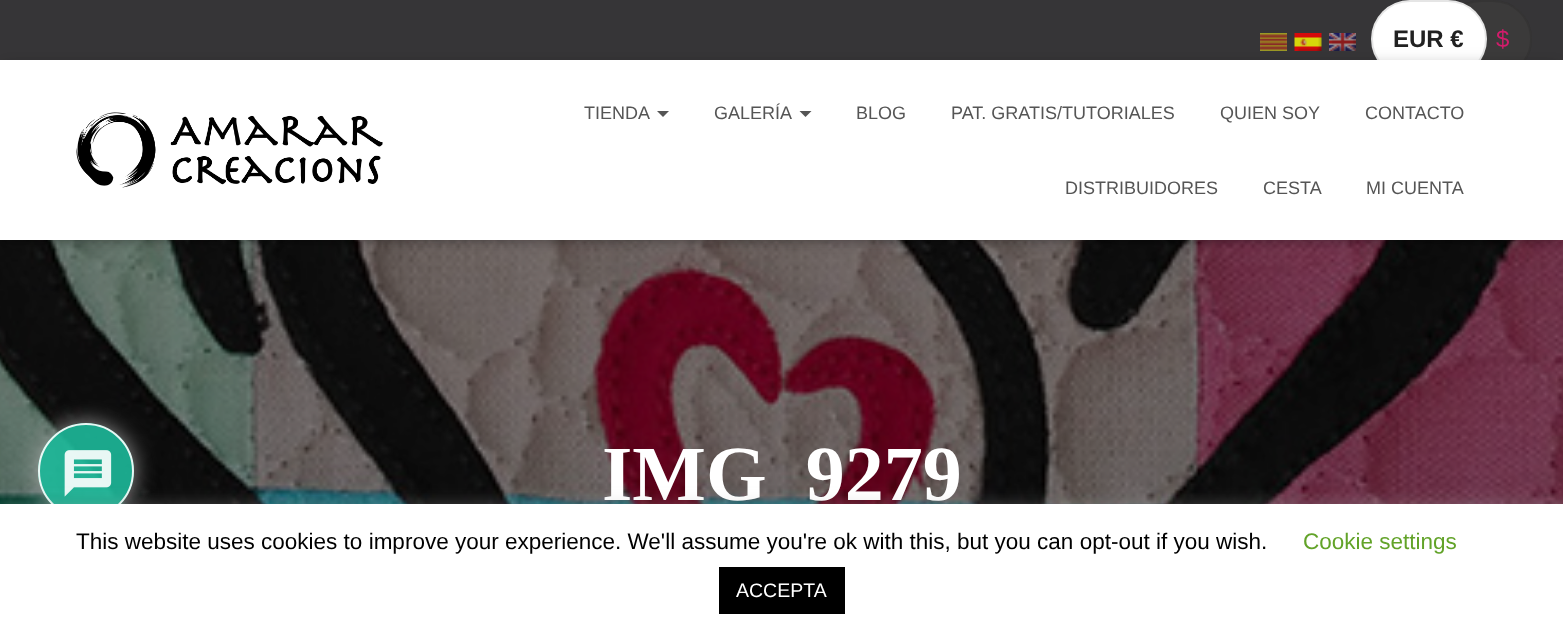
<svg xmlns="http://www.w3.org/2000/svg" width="1563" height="639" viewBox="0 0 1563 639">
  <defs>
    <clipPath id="clip1"><path d="M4 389H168V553H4ZM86 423C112.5 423 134 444.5 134 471C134 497.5 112.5 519 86 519C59.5 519 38 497.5 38 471C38 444.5 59.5 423 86 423Z" clip-rule="evenodd"/></clipPath>
    <filter id="blur1" x="-50%" y="-200%" width="200%" height="500%"><feGaussianBlur stdDeviation="11"/></filter>
    <filter id="blur2" x="-50%" y="-200%" width="200%" height="500%"><feGaussianBlur stdDeviation="4"/></filter>
    <filter id="blur3" x="-50%" y="-200%" width="200%" height="500%"><feGaussianBlur stdDeviation="7.5"/></filter>
  </defs>
  <rect width="100%" height="100%" fill="#363537"/>
  <image x="0" y="240" width="1563" height="264" href="img6.png"/>
  <g clip-path="url(#clip1)">
    <rect x="38" y="423" width="96" height="96" rx="48" fill="#aaaaaa" fill-opacity="0.9" filter="url(#blur1)"/>
  </g>
  <circle cx="86" cy="471" r="48" fill="#1db99a" fill-opacity="0.9"/>
  <circle cx="86" cy="471" r="47" fill="none" stroke="#ffffff" stroke-opacity="0.9" stroke-width="2"/>
  <image x="64" y="450" width="48" height="47" href="img1.png"/>
  <image x="1260" y="33" width="27" height="18" href="img2.png"/>
  <image x="1294" y="33" width="28" height="18" href="img3.png"/>
  <image x="1329" y="33" width="27" height="18" href="img4.png"/>
  <rect x="1442" y="0" width="90" height="78" rx="39" fill="#3b3a3a"/>
  <rect x="1443" y="1" width="88" height="76" rx="38" fill="none" stroke="#000000" stroke-opacity="0.1" stroke-width="2"/>
  <rect x="1371" y="0" width="116" height="78" rx="39" fill="#ffffff"/>
  <rect x="1372" y="1" width="114" height="76" rx="38" fill="none" stroke="#000000" stroke-opacity="0.1" stroke-width="2"/>
  <text x="1393" y="47" font-family="Liberation Sans" font-size="24" font-weight="bold" fill="#212121">EUR €</text>
  <text x="1496" y="47" font-family="Liberation Sans" font-size="24" fill="#d21c6b">$</text>
  <rect x="3" y="69" width="1557" height="174" fill="#000000" fill-opacity="0.1" filter="url(#blur2)"/>
  <rect x="0" y="62" width="1563" height="180" fill="#000000" fill-opacity="0.12" filter="url(#blur3)"/>
  <rect x="9" y="71" width="1545" height="162" fill="#000000" fill-opacity="0.42" filter="url(#blur3)"/>
  <rect x="0" y="60" width="1563" height="180" fill="#ffffff"/>
  <image x="76" y="112" width="307" height="76" href="img5.png"/>
  <text x="584" y="119" font-family="Liberation Sans" font-size="18" fill="#555555">TIENDA</text>
  <path d="M657 111H669L663 117Z" fill="#555555"/>
  <text x="714" y="119" font-family="Liberation Sans" font-size="18" fill="#555555">GALERÍA</text>
  <path d="M799.5 111H811.5L805.5 117Z" fill="#555555"/>
  <text x="856" y="119" font-family="Liberation Sans" font-size="18" fill="#555555">BLOG</text>
  <text x="951" y="119" font-family="Liberation Sans" font-size="18" fill="#555555">PAT. GRATIS/TUTORIALES</text>
  <text x="1220" y="119" font-family="Liberation Sans" font-size="18" fill="#555555">QUIEN SOY</text>
  <text x="1365" y="119" font-family="Liberation Sans" font-size="18" fill="#555555">CONTACTO</text>
  <text x="1065" y="194" font-family="Liberation Sans" font-size="18" fill="#555555">DISTRIBUIDORES</text>
  <text x="1263" y="194" font-family="Liberation Sans" font-size="18" fill="#555555">CESTA</text>
  <text x="1366" y="194" font-family="Liberation Sans" font-size="18" fill="#555555">MI CUENTA</text>
  <text x="602" y="500" font-family="Liberation Serif" font-size="78" font-weight="bold" fill="#ffffff">IMG_9279</text>
  <rect x="0" y="503" width="1563" height="135" fill="#acabab" fill-opacity="0.3" filter="url(#blur3)"/>
  <rect x="0" y="504" width="1563" height="135" fill="#ffffff"/>
  <text x="76" y="549" font-family="Liberation Sans" font-size="22.5" fill="#000000">This website uses cookies to improve your experience. We'll assume you're ok with this, but you can opt-out if you wish.</text>
  <text x="1303" y="549" font-family="Liberation Sans" font-size="22.5" fill="#62a329">Cookie settings</text>
  <rect x="719" y="567" width="126" height="47" fill="#000000"/>
  <text x="736" y="597" font-family="Liberation Sans" font-size="19.5" fill="#ffffff">ACCEPTA</text>
</svg>
